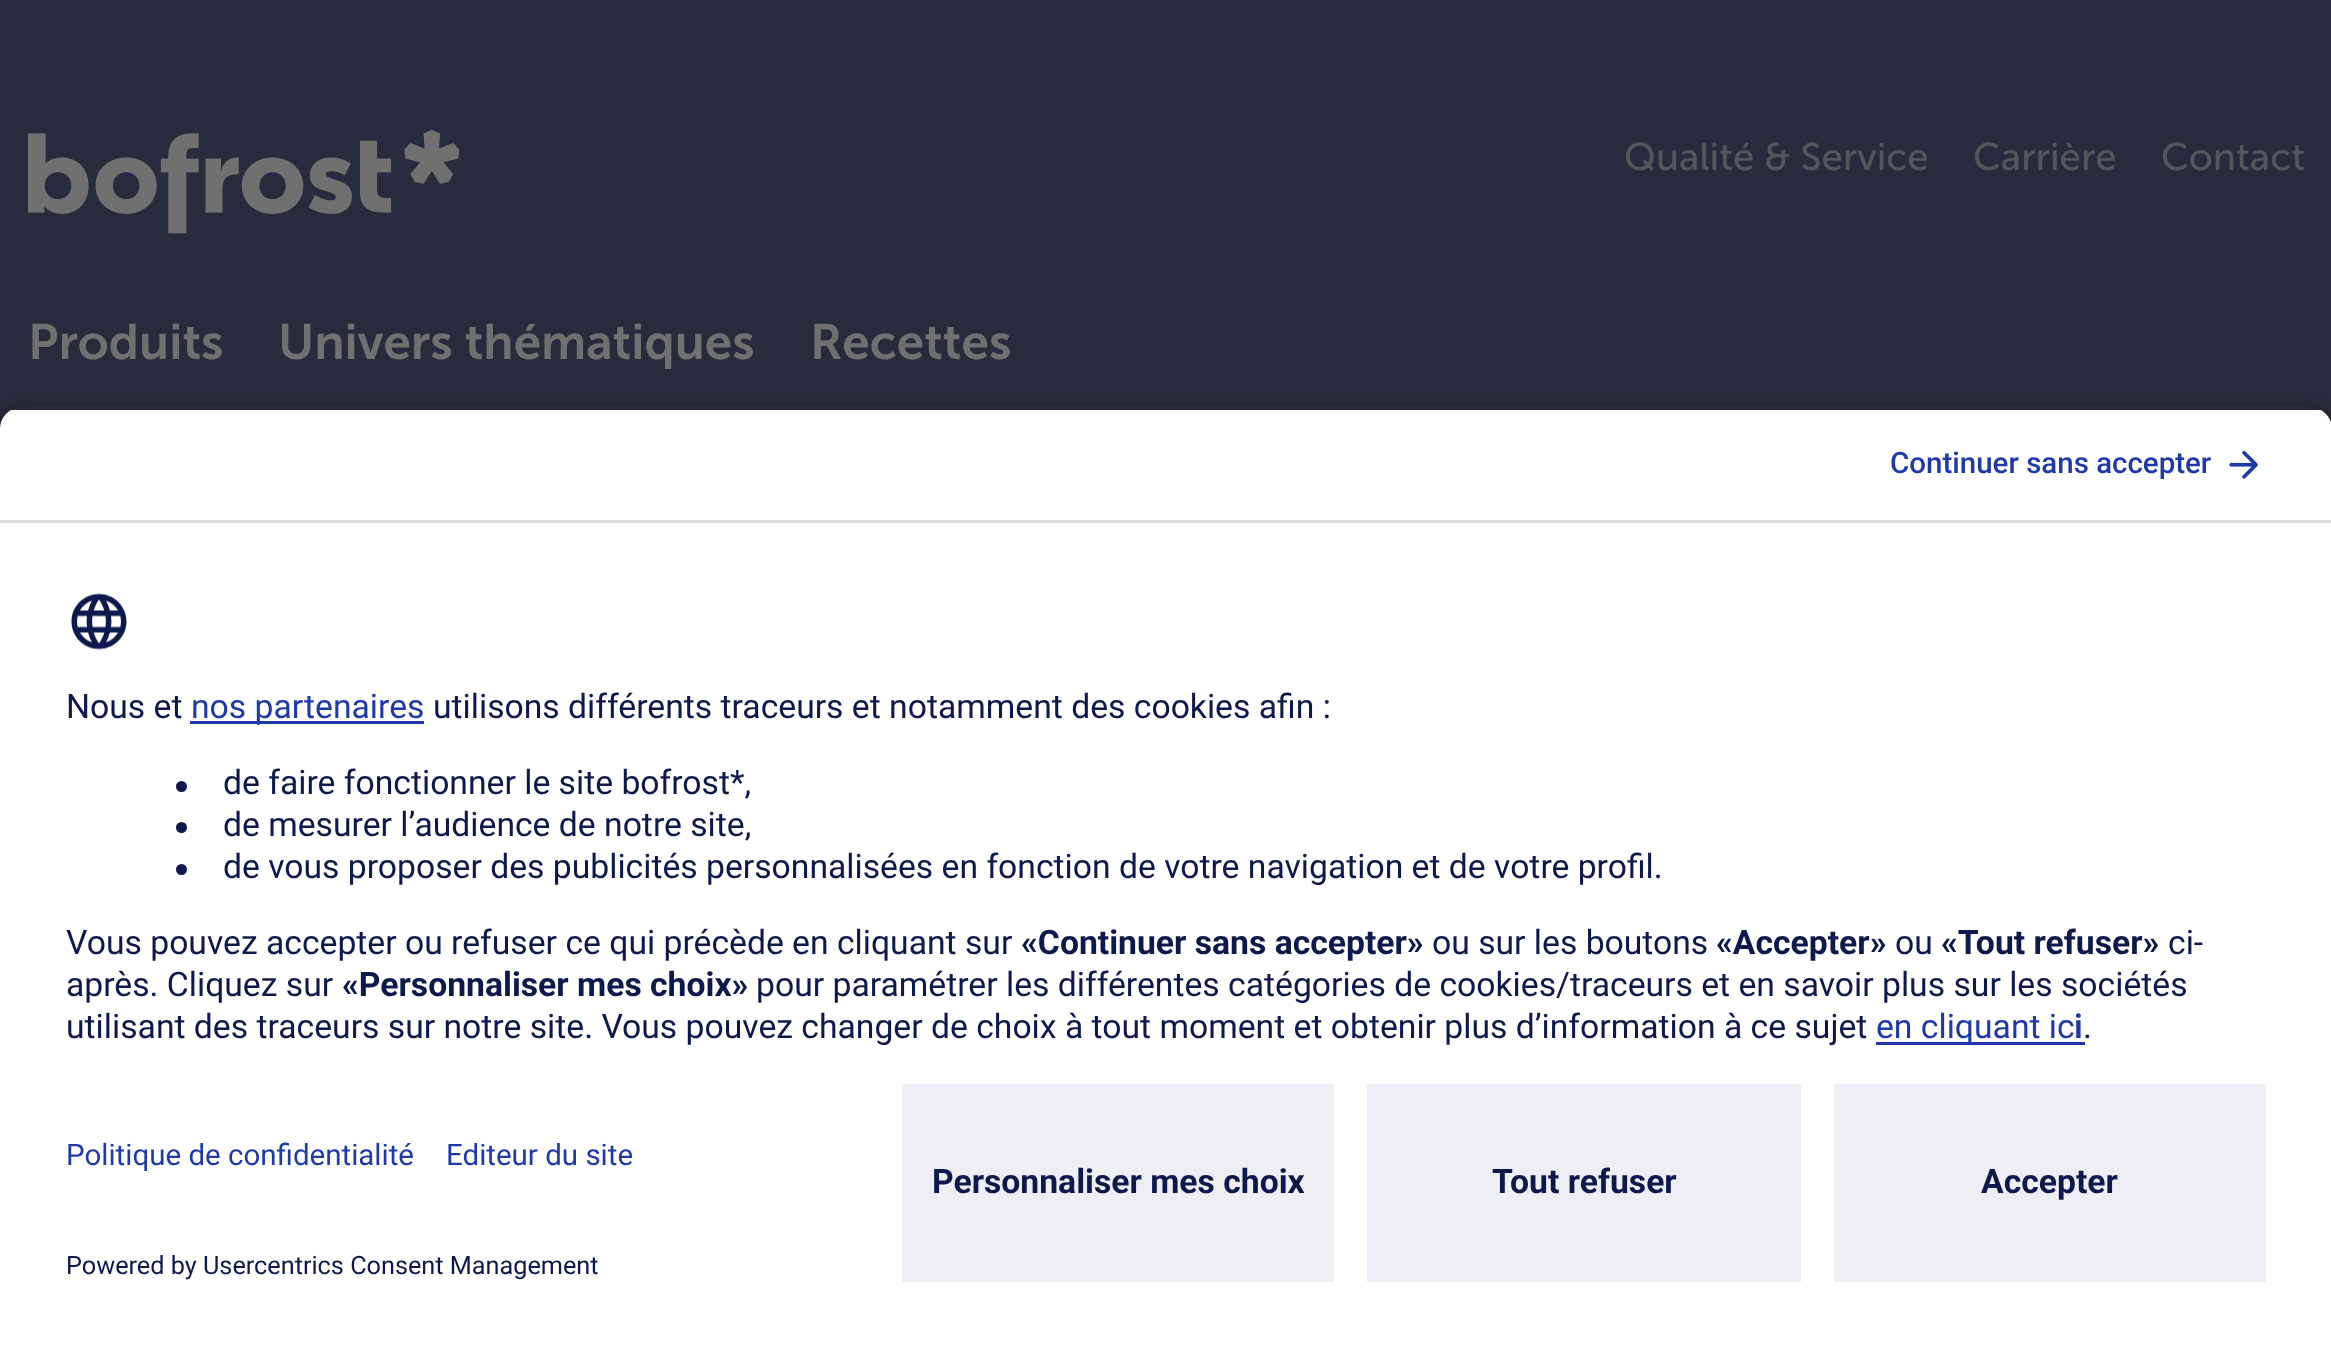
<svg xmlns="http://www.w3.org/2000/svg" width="2331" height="1347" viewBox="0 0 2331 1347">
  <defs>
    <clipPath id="clip1"><path d="M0 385H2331V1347H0ZM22 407H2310C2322 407 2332 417 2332 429V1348H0V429C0 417 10 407 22 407Z" clip-rule="evenodd"/></clipPath>
    <filter id="blur1" x="-50%" y="-200%" width="200%" height="500%"><feGaussianBlur stdDeviation="9.5"/></filter>
    <clipPath id="clip2"><path d="M22 407H2310C2322 407 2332 417 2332 429V1062H0V429C0 417 10 407 22 407Z"/></clipPath>
  </defs>
  <rect width="100%" height="100%" fill="#282b3b"/>
  <image x="28" y="129" width="431" height="105" href="img1.png"/>
  <text x="1624" y="170" font-family="Museo Sans" font-size="38.5" fill="#54565c">Qualité &amp; Service</text>
  <text x="1973" y="170" font-family="Museo Sans" font-size="38.5" fill="#54565c">Carrière</text>
  <text x="2161" y="170" font-family="Museo Sans" font-size="38.5" fill="#54565c">Contact</text>
  <text x="28" y="359" font-family="Museo Sans" font-size="49.5" font-weight="600" fill="#707070">Produits</text>
  <text x="278" y="359" font-family="Museo Sans" font-size="49.5" font-weight="600" fill="#707070">Univers thématiques</text>
  <text x="810" y="359" font-family="Museo Sans" font-size="49.5" font-weight="600" fill="#707070">Recettes</text>
  <g clip-path="url(#clip1)">
    <rect x="0" y="415" width="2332" height="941" rx="22" fill="#000000" fill-opacity="0.8" filter="url(#blur1)"/>
  </g>
  <g clip-path="url(#clip2)">
    <rect x="0" y="410" width="2331" height="110" fill="#ffffff"/>
  </g>
  <rect x="0" y="520" width="2331" height="3" fill="#dedede"/>
  <text x="1890" y="473" font-family="Roboto" font-size="29.5" font-weight="500" fill="#1f39ab">Continuer sans accepter</text>
  <image x="2229" y="450" width="29" height="29" href="img2.png"/>
  <rect x="0" y="523" width="2331" height="824" fill="#ffffff"/>
  <image x="71" y="593" width="56" height="57" href="img3.png"/>
  <text x="66" y="718" font-family="Roboto" font-size="33.7" fill="#0d194d">Nous et</text>
  <rect x="190" y="721" width="234" height="3" fill="#1f39ab"/>
  <text x="191" y="718" font-family="Roboto" font-size="33.7" fill="#1f39ab">nos partenaires</text>
  <text x="433" y="718" font-family="Roboto" font-size="33.7" fill="#0d194d">utilisons différents traceurs et notamment des cookies afin :</text>
  <circle cx="181.5" cy="786.5" r="5.5" fill="#0d194d"/>
  <text x="223" y="794" font-family="Roboto" font-size="33.7" fill="#0d194d">de faire fonctionner le site bofrost*,</text>
  <circle cx="181.5" cy="827.5" r="5.5" fill="#0d194d"/>
  <text x="223" y="836" font-family="Roboto" font-size="33.7" fill="#0d194d">de mesurer l’audience de notre site,</text>
  <circle cx="181.5" cy="869.5" r="5.5" fill="#0d194d"/>
  <text x="223" y="878" font-family="Roboto" font-size="33.7" fill="#0d194d">de vous proposer des publicités personnalisées en fonction de votre navigation et de votre profil.</text>
  <text x="66" y="954" font-family="Roboto" font-size="33.7" fill="#0d194d">Vous pouvez accepter ou refuser ce qui précède en cliquant sur</text>
  <text x="1021" y="954" font-family="Roboto" font-size="33.7" font-weight="bold" fill="#0d194d">«Continuer sans accepter»</text>
  <text x="1432" y="954" font-family="Roboto" font-size="33.7" fill="#0d194d">ou sur les boutons</text>
  <text x="1716" y="954" font-family="Roboto" font-size="33.7" font-weight="bold" fill="#0d194d">«Accepter»</text>
  <text x="1895" y="954" font-family="Roboto" font-size="33.7" fill="#0d194d">ou</text>
  <text x="1941" y="954" font-family="Roboto" font-size="33.7" font-weight="bold" fill="#0d194d">«Tout refuser»</text>
  <text x="2168" y="954" font-family="Roboto" font-size="33.7" fill="#0d194d">ci-</text>
  <text x="66" y="996" font-family="Roboto" font-size="33.7" fill="#0d194d">après. Cliquez sur</text>
  <text x="342" y="996" font-family="Roboto" font-size="33.7" font-weight="bold" fill="#0d194d">«Personnaliser mes choix»</text>
  <text x="756" y="996" font-family="Roboto" font-size="33.7" fill="#0d194d">pour paramétrer les différentes catégories de cookies/traceurs et en savoir plus sur les sociétés</text>
  <text x="66" y="1038" font-family="Roboto" font-size="33.7" fill="#0d194d">utilisant des traceurs sur notre site. Vous pouvez changer de choix à tout moment et obtenir plus d’information à ce sujet</text>
  <rect x="1876" y="1042" width="209" height="3" fill="#1f39ab"/>
  <text x="1876" y="1038" font-family="Roboto" font-size="33.7" fill="#1f39ab">en cliquant ic</text>
  <text x="2074" y="1038" font-family="Roboto" font-size="33.7" font-weight="600" fill="#1f39ab">i</text>
  <text x="2083" y="1038" font-family="Roboto" font-size="33.7" fill="#0d194d">.</text>
  <text x="66" y="1165" font-family="Roboto" font-size="29.5" fill="#1f39ab">Politique de confidentialité</text>
  <text x="446" y="1165" font-family="Roboto" font-size="29.5" fill="#1f39ab">Editeur du site</text>
  <text x="66" y="1274" font-family="Roboto" font-size="25.25" fill="#0d194d">Powered by Usercentrics Consent Management</text>
  <rect x="902" y="1084" width="432" height="198" fill="#eeeef5"/>
  <text x="932" y="1193" font-family="Roboto" font-size="33.7" font-weight="bold" fill="#0d194d">Personnaliser mes choix</text>
  <rect x="1367" y="1084" width="434" height="198" fill="#eeeef5"/>
  <text x="1492" y="1193" font-family="Roboto" font-size="33.7" font-weight="bold" fill="#0d194d">Tout refuser</text>
  <rect x="1834" y="1084" width="432" height="198" fill="#eeeef5"/>
  <text x="1981" y="1193" font-family="Roboto" font-size="33.7" font-weight="bold" fill="#0d194d">Accepter</text>
</svg>
